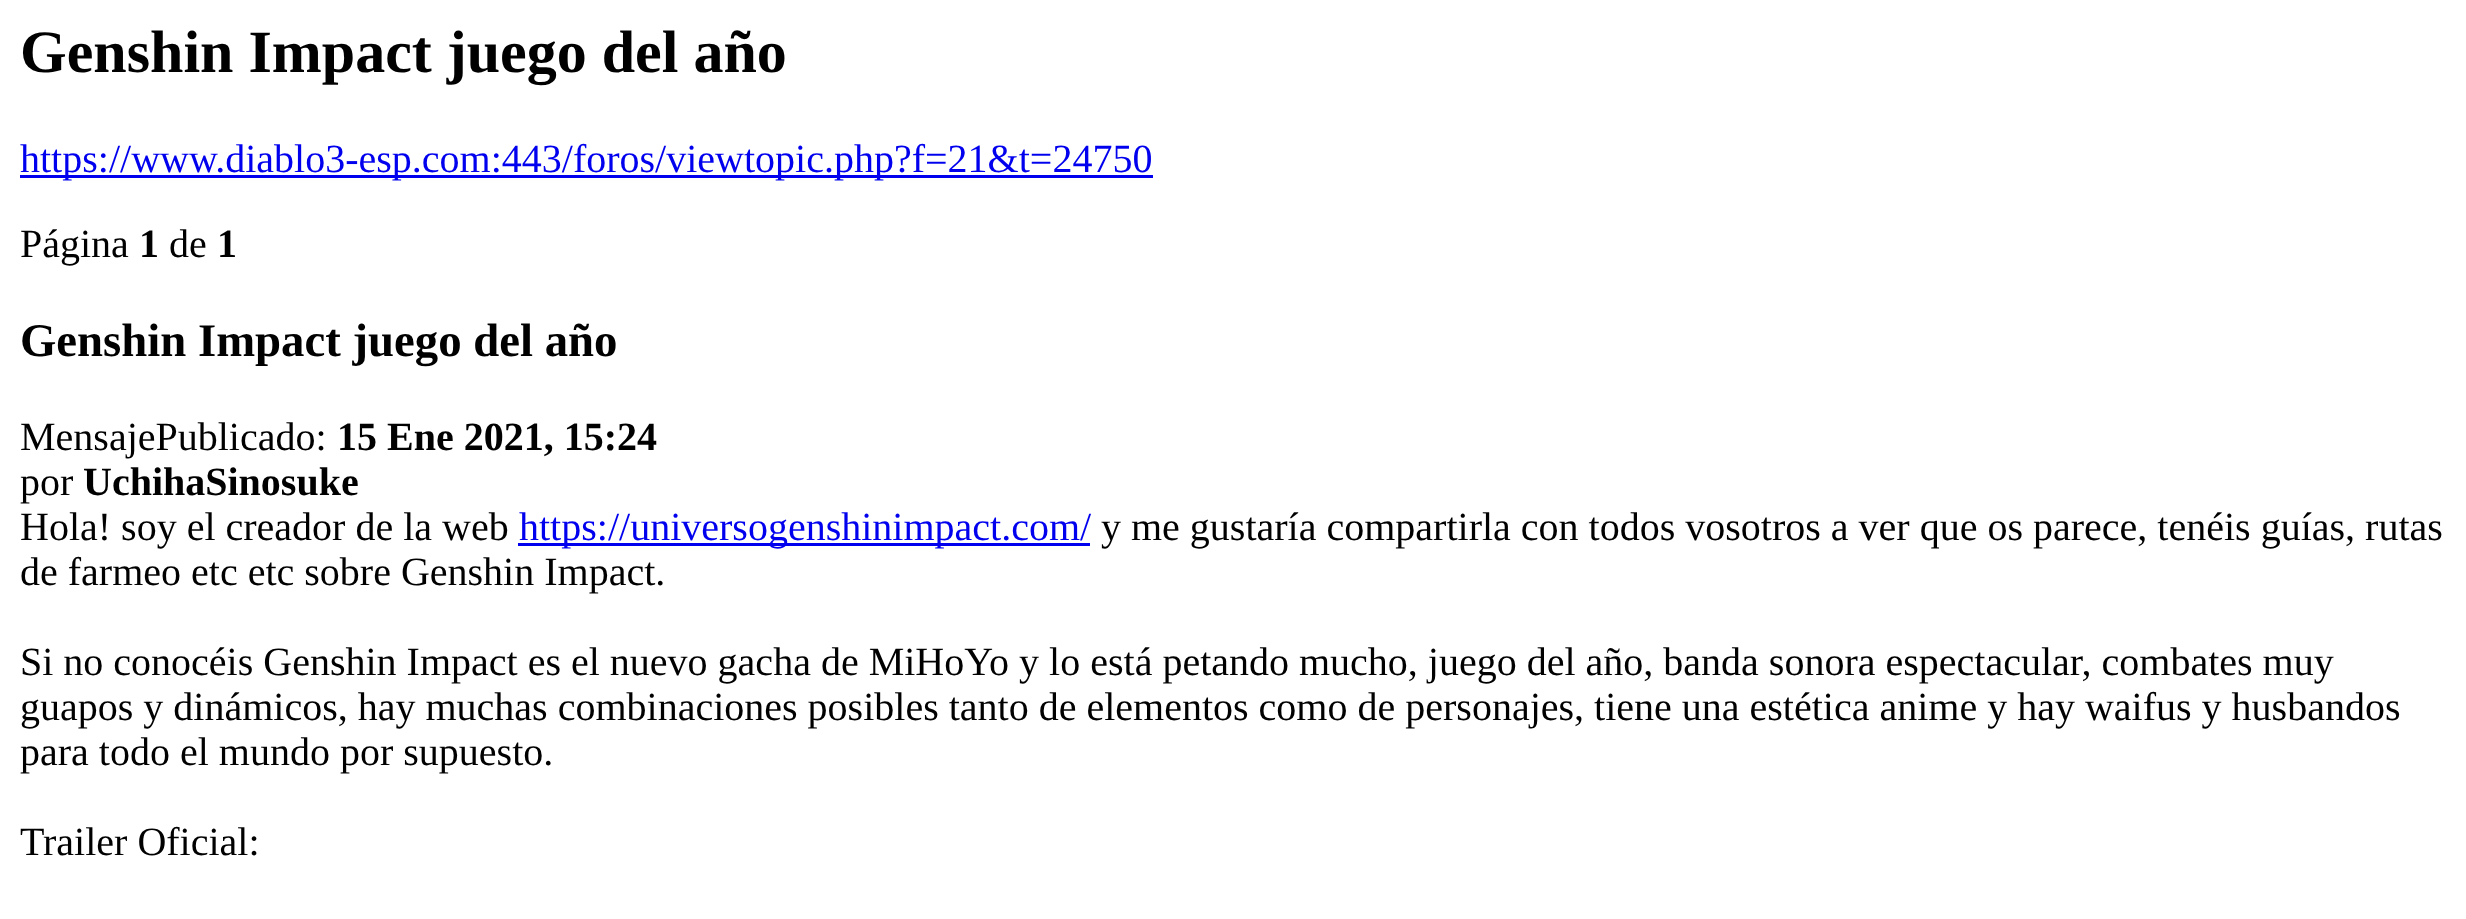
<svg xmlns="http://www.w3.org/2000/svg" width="2466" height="919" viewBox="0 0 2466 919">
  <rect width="100%" height="100%" fill="#ffffff"/>
  <text x="20" y="72" font-family="Liberation Serif" font-size="60" font-weight="bold" fill="#000000">Genshin Impact juego del año</text>
  <rect x="20" y="175" width="1133" height="3" fill="#0000ee"/>
  <text x="20" y="172" font-family="Liberation Serif" font-size="40" fill="#0000ee">https://www.diablo3-esp.com:443/foros/viewtopic.php?f=21&amp;t=24750</text>
  <text x="20" y="257" font-family="Liberation Serif" font-size="40" fill="#000000">Página</text>
  <text x="139" y="257" font-family="Liberation Serif" font-size="40" font-weight="bold" fill="#000000">1</text>
  <text x="169" y="257" font-family="Liberation Serif" font-size="40" fill="#000000">de</text>
  <text x="217" y="257" font-family="Liberation Serif" font-size="40" font-weight="bold" fill="#000000">1</text>
  <text x="20" y="356" font-family="Liberation Serif" font-size="46.75" font-weight="bold" fill="#000000">Genshin Impact juego del año</text>
  <text x="20" y="450" font-family="Liberation Serif" font-size="40" fill="#000000">MensajePublicado:</text>
  <text x="337" y="450" font-family="Liberation Serif" font-size="40" font-weight="bold" fill="#000000">15 Ene 2021, 15:24</text>
  <text x="20" y="495" font-family="Liberation Serif" font-size="40" fill="#000000">por</text>
  <text x="83" y="495" font-family="Liberation Serif" font-size="40" font-weight="bold" fill="#000000">UchihaSinosuke</text>
  <text x="20" y="540" font-family="Liberation Serif" font-size="40" fill="#000000">Hola! soy el creador de la web</text>
  <rect x="518" y="543" width="572" height="3" fill="#0000ee"/>
  <text x="519" y="540" font-family="Liberation Serif" font-size="40" fill="#0000ee">https://universogenshinimpact.com/</text>
  <text x="1101" y="540" font-family="Liberation Serif" font-size="40" fill="#000000">y me gustaría compartirla con todos vosotros a ver que os parece, tenéis guías, rutas</text>
  <text x="20" y="585" font-family="Liberation Serif" font-size="40" fill="#000000">de farmeo etc etc sobre Genshin Impact.</text>
  <text x="20" y="675" font-family="Liberation Serif" font-size="40" fill="#000000">Si no conocéis Genshin Impact es el nuevo gacha de MiHoYo y lo está petando mucho, juego del año, banda sonora espectacular, combates muy</text>
  <text x="20" y="720" font-family="Liberation Serif" font-size="40" fill="#000000">guapos y dinámicos, hay muchas combinaciones posibles tanto de elementos como de personajes, tiene una estética anime y hay waifus y husbandos</text>
  <text x="20" y="765" font-family="Liberation Serif" font-size="40" fill="#000000">para todo el mundo por supuesto.</text>
  <text x="20" y="855" font-family="Liberation Serif" font-size="40" fill="#000000">Trailer Oficial:</text>
</svg>
